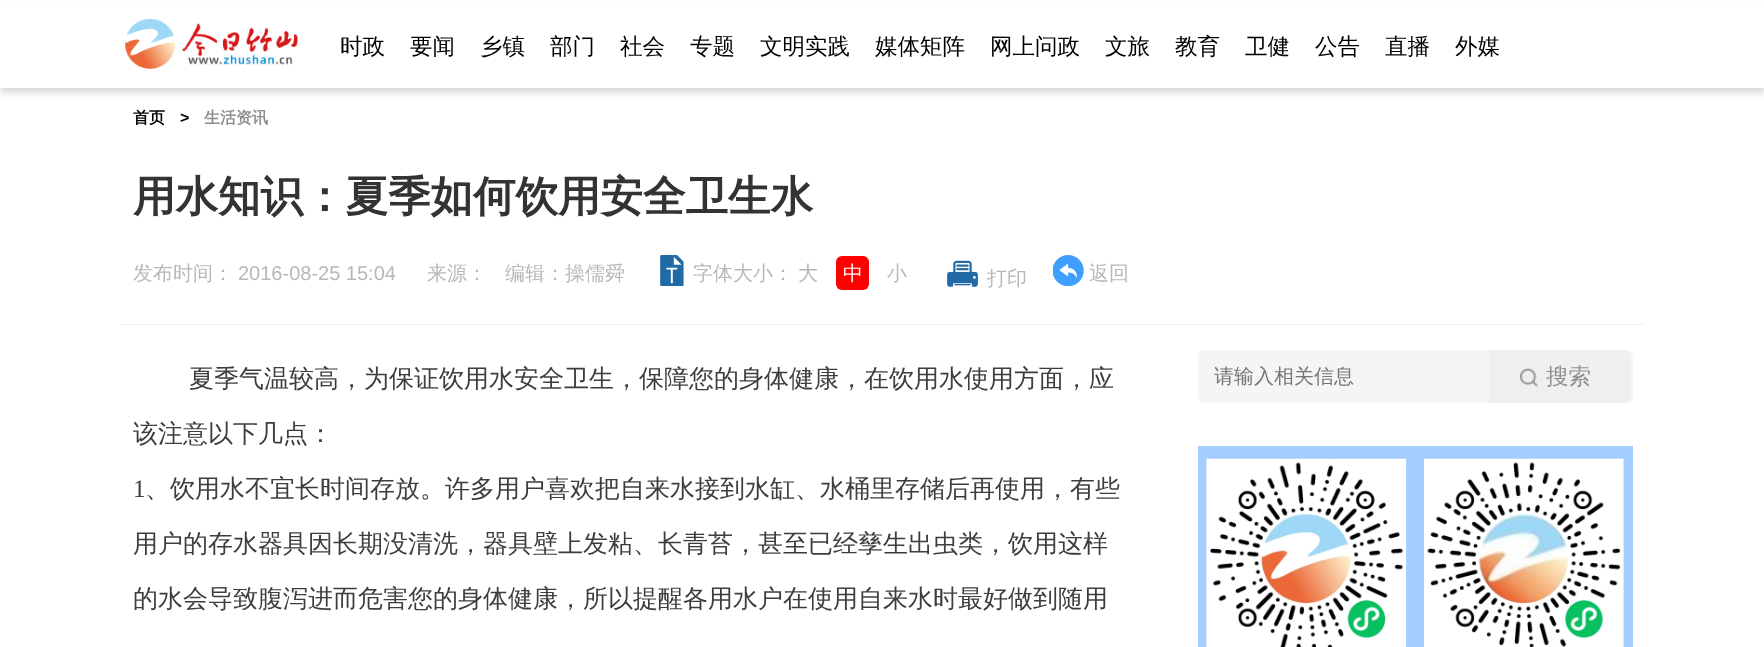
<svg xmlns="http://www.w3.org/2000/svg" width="1764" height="647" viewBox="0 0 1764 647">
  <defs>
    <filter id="blur1" x="-50%" y="-200%" width="200%" height="500%"><feGaussianBlur stdDeviation="3"/></filter>
  </defs>
  <rect width="100%" height="100%" fill="#ffffff"/>
  <rect x="0" y="5" width="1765" height="88" fill="#000000" fill-opacity="0.15" filter="url(#blur1)"/>
  <rect x="0" y="1" width="1764" height="87" fill="#ffffff"/>
  <image x="125" y="18" width="173" height="51" href="img1.png"/>
  <text x="340" y="54" font-family="WenQuanYi Zen Hei" font-size="22.5" font-weight="500" fill="#000000">时政</text>
  <text x="410" y="54" font-family="WenQuanYi Zen Hei" font-size="22.5" font-weight="500" fill="#000000">要闻</text>
  <text x="480" y="54" font-family="WenQuanYi Zen Hei" font-size="22.5" font-weight="500" fill="#000000">乡镇</text>
  <text x="550" y="54" font-family="WenQuanYi Zen Hei" font-size="22.5" font-weight="500" fill="#000000">部门</text>
  <text x="620" y="54" font-family="WenQuanYi Zen Hei" font-size="22.5" font-weight="500" fill="#000000">社会</text>
  <text x="690" y="54" font-family="WenQuanYi Zen Hei" font-size="22.5" font-weight="500" fill="#000000">专题</text>
  <text x="760" y="54" font-family="WenQuanYi Zen Hei" font-size="22.5" font-weight="500" fill="#000000">文明实践</text>
  <text x="875" y="54" font-family="WenQuanYi Zen Hei" font-size="22.5" font-weight="500" fill="#000000">媒体矩阵</text>
  <text x="990" y="54" font-family="WenQuanYi Zen Hei" font-size="22.5" font-weight="500" fill="#000000">网上问政</text>
  <text x="1105" y="54" font-family="WenQuanYi Zen Hei" font-size="22.5" font-weight="500" fill="#000000">文旅</text>
  <text x="1175" y="54" font-family="WenQuanYi Zen Hei" font-size="22.5" font-weight="500" fill="#000000">教育</text>
  <text x="1245" y="54" font-family="WenQuanYi Zen Hei" font-size="22.5" font-weight="500" fill="#000000">卫健</text>
  <text x="1315" y="54" font-family="WenQuanYi Zen Hei" font-size="22.5" font-weight="500" fill="#000000">公告</text>
  <text x="1385" y="54" font-family="WenQuanYi Zen Hei" font-size="22.5" font-weight="500" fill="#000000">直播</text>
  <text x="1455" y="54" font-family="WenQuanYi Zen Hei" font-size="22.5" font-weight="500" fill="#000000">外媒</text>
  <text x="133" y="123" font-family="WenQuanYi Zen Hei" font-size="16" font-weight="bold" fill="#000000">首页</text>
  <text x="180" y="123" font-family="Liberation Sans" font-size="16" font-weight="bold" fill="#000000">&gt;</text>
  <text x="204" y="123" font-family="WenQuanYi Zen Hei" font-size="16" font-weight="bold" fill="#8e8e8e">生活资讯</text>
  <rect x="120" y="324" width="1525" height="1" fill="#f1f1f1"/>
  <text x="133" y="211" font-family="WenQuanYi Zen Hei" font-size="42.5" font-weight="bold" fill="#333333">用水知识：夏季如何饮用安全卫生水</text>
  <text x="133" y="280" font-family="WenQuanYi Zen Hei" font-size="20" font-weight="500" fill="#b8b8b8">发布时间：</text>
  <text x="238" y="280" font-family="Liberation Sans" font-size="20" fill="#b8b8b8">2016-08-25 15:04</text>
  <text x="427" y="280" font-family="WenQuanYi Zen Hei" font-size="20" font-weight="500" fill="#b8b8b8">来源：</text>
  <text x="505" y="280" font-family="WenQuanYi Zen Hei" font-size="20" font-weight="500" fill="#b8b8b8">编辑：操儒舜</text>
  <image x="660" y="255" width="24" height="31" href="img2.png"/>
  <text x="693" y="280" font-family="WenQuanYi Zen Hei" font-size="20" font-weight="500" fill="#b8b8b8">字体大小：</text>
  <text x="798" y="280" font-family="WenQuanYi Zen Hei" font-size="20" font-weight="500" fill="#b8b8b8">大</text>
  <rect x="836" y="256" width="33" height="34" rx="6" fill="#ff0000"/>
  <text x="843" y="280" font-family="WenQuanYi Zen Hei" font-size="20" font-weight="500" fill="#ffffff">中</text>
  <text x="887" y="280" font-family="WenQuanYi Zen Hei" font-size="20" font-weight="500" fill="#b8b8b8">小</text>
  <image x="947" y="260" width="31" height="27" href="img3.png"/>
  <text x="987" y="285" font-family="WenQuanYi Zen Hei" font-size="20" font-weight="500" fill="#b8b8b8">打印</text>
  <image x="1053" y="255" width="31" height="31" href="img4.png"/>
  <text x="1089" y="280" font-family="WenQuanYi Zen Hei" font-size="20" font-weight="500" fill="#b8b8b8">返回</text>
  <text x="189" y="387" font-family="WenQuanYi Zen Hei" font-size="25" font-weight="500" fill="#3d3d3d">夏季气温较高，为保证饮用水安全卫生，保障您的身体健康，在饮用水使用方面，应</text>
  <text x="133" y="442" font-family="WenQuanYi Zen Hei" font-size="25" font-weight="500" fill="#3d3d3d">该注意以下几点：</text>
  <text x="133" y="497" font-family="Liberation Serif" font-size="25" fill="#3d3d3d">1</text>
  <text x="145" y="497" font-family="WenQuanYi Zen Hei" font-size="25" font-weight="500" fill="#3d3d3d">、饮用水不宜长时间存放。许多用户喜欢把自来水接到水缸、水桶里存储后再使用，有些</text>
  <text x="133" y="552" font-family="WenQuanYi Zen Hei" font-size="25" font-weight="500" fill="#3d3d3d">用户的存水器具因长期没清洗，器具壁上发粘、长青苔，甚至已经孳生出虫类，饮用这样</text>
  <text x="133" y="607" font-family="WenQuanYi Zen Hei" font-size="25" font-weight="500" fill="#3d3d3d">的水会导致腹泻进而危害您的身体健康，所以提醒各用水户在使用自来水时最好做到随用</text>
  <rect x="1198" y="350" width="435" height="53" rx="6" fill="#f5f5f5"/>
  <text x="1214" y="383" font-family="WenQuanYi Zen Hei" font-size="20" font-weight="500" fill="#757575">请输入相关信息</text>
  <path d="M1489 350H1624C1627.5 350 1630 352.5 1630 356V397C1630 400.5 1627.5 403 1624 403H1489Z" fill="#efefef"/>
  <text x="1546" y="384" font-family="WenQuanYi Zen Hei" font-size="22.5" font-weight="500" fill="#8e8e8e">搜索</text>
  <image x="1520" y="368" width="18" height="19" href="img5.png"/>
  <rect x="1198" y="446" width="435" height="201" fill="#a4ceff"/>
  <image x="1206" y="458" width="201" height="189" href="img6.png"/>
  <image x="1423" y="458" width="201" height="189" href="img7.png"/>
</svg>
